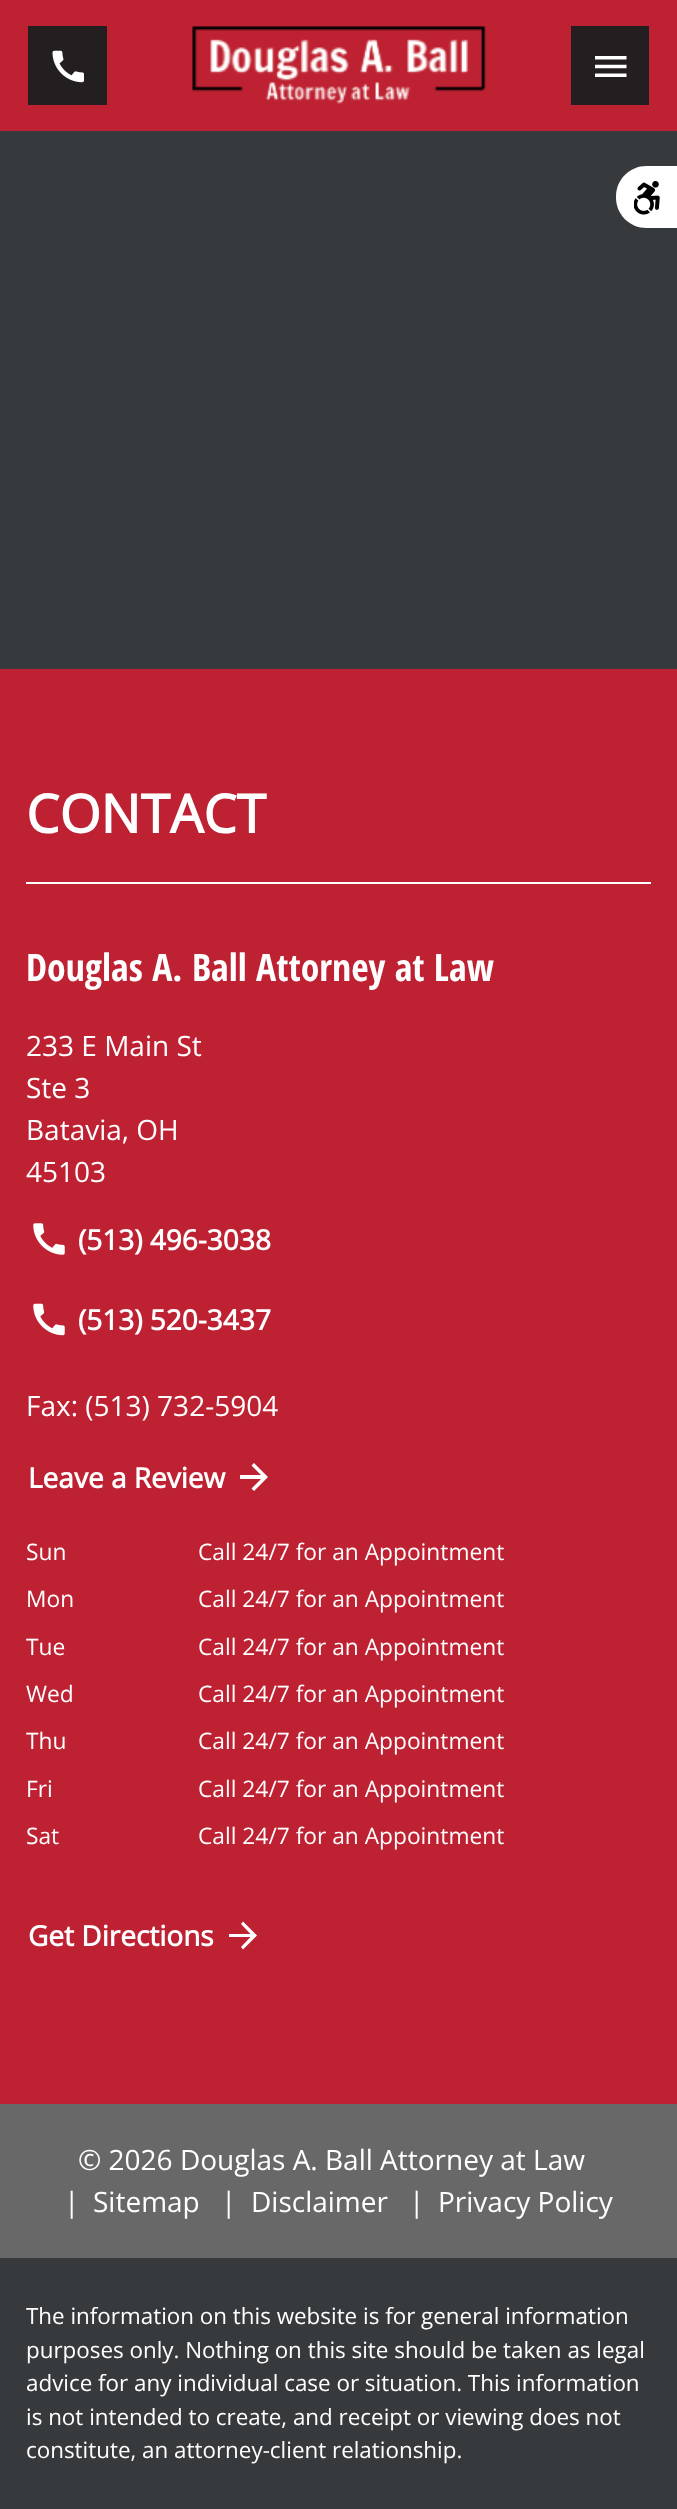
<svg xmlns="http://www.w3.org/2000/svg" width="677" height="2509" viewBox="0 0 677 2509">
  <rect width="100%" height="100%" fill="#373a3c"/>
  <rect x="0" y="0" width="677" height="131" fill="#be2132"/>
  <rect x="28" y="26" width="79" height="79" fill="#231f20"/>
  <image x="52" y="50" width="32" height="33" href="img1.png"/>
  <image x="192" y="26" width="295" height="79" href="img2.png"/>
  <rect x="571" y="26" width="78" height="79" fill="#231f20"/>
  <image x="595" y="56" width="32" height="21" href="img3.png"/>
  <path d="M646.5 166H677V228H646.5C629.5 228 616 214.5 616 197.5V196.5C616 179.5 629.5 166 646.5 166Z" fill="#ffffff"/>
  <image x="634" y="181" width="26" height="34" href="img4.png"/>
  <rect x="0" y="669" width="677" height="1435" fill="#be2132"/>
  <rect x="26" y="882" width="625" height="2" fill="#ffffff"/>
  <text x="26" y="833" font-family="Open Sans" font-size="53" font-weight="bold" fill="#ffffff">CONTACT</text>
  <text x="26" y="981" font-family="Open Sans Condensed" font-size="37.75" font-weight="bold" fill="#ffffff">Douglas A. Ball Attorney at Law</text>
  <text x="26" y="1056" font-family="Open Sans" font-size="28" fill="#ffffff">233 E Main St</text>
  <text x="26" y="1098" font-family="Open Sans" font-size="28" fill="#ffffff">Ste 3</text>
  <text x="26" y="1140" font-family="Open Sans" font-size="28" fill="#ffffff">Batavia, OH</text>
  <text x="26" y="1182" font-family="Open Sans" font-size="28" fill="#ffffff">45103</text>
  <image x="33" y="1223" width="32" height="32" href="img5.png"/>
  <text x="78" y="1250" font-family="Open Sans" font-size="28" font-weight="bold" fill="#ffffff">(513) 496-3038</text>
  <image x="33" y="1303" width="32" height="33" href="img6.png"/>
  <text x="78" y="1330" font-family="Open Sans" font-size="28" font-weight="bold" fill="#ffffff">(513) 520-3437</text>
  <text x="26" y="1416" font-family="Open Sans" font-size="28" fill="#ffffff">Fax: (513) 732-5904</text>
  <text x="28" y="1488" font-family="Open Sans" font-size="28" font-weight="bold" fill="#ffffff">Leave a Review</text>
  <path d="M254 1463L251.5 1465.5L261 1475H240V1479H261L251.5 1488.5L254 1491L268 1477Z" fill="#ffffff"/>
  <text x="26" y="1560" font-family="Open Sans" font-size="22.75" fill="#ffffff">Sun</text>
  <text x="198" y="1560" font-family="Open Sans" font-size="22.75" fill="#ffffff">Call 24/7 for an Appointment</text>
  <text x="26" y="1607" font-family="Open Sans" font-size="22.75" fill="#ffffff">Mon</text>
  <text x="198" y="1607" font-family="Open Sans" font-size="22.75" fill="#ffffff">Call 24/7 for an Appointment</text>
  <text x="26" y="1655" font-family="Open Sans" font-size="22.75" fill="#ffffff">Tue</text>
  <text x="198" y="1655" font-family="Open Sans" font-size="22.75" fill="#ffffff">Call 24/7 for an Appointment</text>
  <text x="26" y="1702" font-family="Open Sans" font-size="22.75" fill="#ffffff">Wed</text>
  <text x="198" y="1702" font-family="Open Sans" font-size="22.75" fill="#ffffff">Call 24/7 for an Appointment</text>
  <text x="26" y="1749" font-family="Open Sans" font-size="22.75" fill="#ffffff">Thu</text>
  <text x="198" y="1749" font-family="Open Sans" font-size="22.75" fill="#ffffff">Call 24/7 for an Appointment</text>
  <text x="26" y="1797" font-family="Open Sans" font-size="22.75" fill="#ffffff">Fri</text>
  <text x="198" y="1797" font-family="Open Sans" font-size="22.75" fill="#ffffff">Call 24/7 for an Appointment</text>
  <text x="26" y="1844" font-family="Open Sans" font-size="22.75" fill="#ffffff">Sat</text>
  <text x="198" y="1844" font-family="Open Sans" font-size="22.75" fill="#ffffff">Call 24/7 for an Appointment</text>
  <text x="28" y="1946" font-family="Open Sans" font-size="28" font-weight="bold" fill="#ffffff">Get Directions</text>
  <path d="M243 1921.5L241 1924L250.5 1934H229V1937H250.5L241 1947L243 1949.5L257 1935.5Z" fill="#ffffff"/>
  <rect x="0" y="2104" width="677" height="154" fill="#686868"/>
  <text x="78" y="2170" font-family="Open Sans" font-size="28" fill="#ffffff">© 2026 Douglas A. Ball Attorney at Law</text>
  <text x="64" y="2212" font-family="Open Sans" font-size="28" fill="#ffffff">|</text>
  <text x="93" y="2212" font-family="Open Sans" font-size="28" fill="#ffffff">Sitemap</text>
  <text x="221" y="2212" font-family="Open Sans" font-size="28" fill="#ffffff">|</text>
  <text x="251" y="2212" font-family="Open Sans" font-size="28" fill="#ffffff">Disclaimer</text>
  <text x="409" y="2212" font-family="Open Sans" font-size="28" fill="#ffffff">|</text>
  <text x="438" y="2212" font-family="Open Sans" font-size="28" fill="#ffffff">Privacy Policy</text>
  <text x="26" y="2324" font-family="Open Sans" font-size="22.4" fill="#ffffff">The information on this website is for general information</text>
  <text x="26" y="2358" font-family="Open Sans" font-size="22.4" fill="#ffffff">purposes only. Nothing on this site should be taken as legal</text>
  <text x="26" y="2391" font-family="Open Sans" font-size="22.4" fill="#ffffff">advice for any individual case or situation. This information</text>
  <text x="26" y="2425" font-family="Open Sans" font-size="22.4" fill="#ffffff">is not intended to create, and receipt or viewing does not</text>
  <text x="26" y="2458" font-family="Open Sans" font-size="22.4" fill="#ffffff">constitute, an attorney-client relationship.</text>
</svg>
